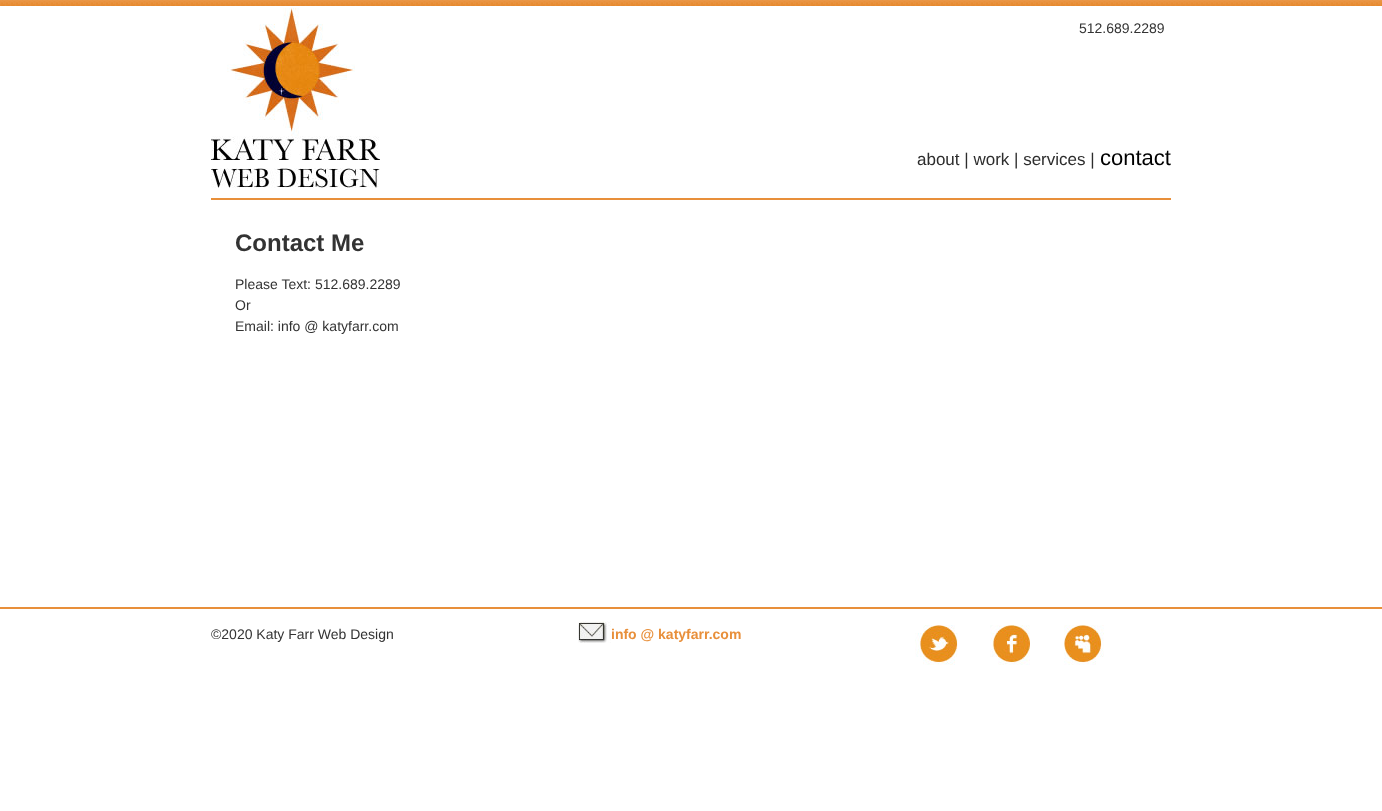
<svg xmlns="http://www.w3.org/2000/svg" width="1382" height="811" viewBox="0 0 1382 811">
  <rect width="100%" height="100%" fill="#ffffff"/>
  <image x="0" y="0" width="1382" height="6" href="img1.png"/>
  <rect x="211" y="198" width="960" height="2" fill="#e88f3a"/>
  <image x="211" y="8" width="169" height="180" href="img2.png"/>
  <text x="1079" y="33" font-family="Liberation Sans" font-size="14" fill="#333333">512.689.2289</text>
  <text x="917" y="165" font-family="Liberation Sans" font-size="17" fill="#2d2d2d">about | work | services |</text>
  <text x="1100" y="165" font-family="Liberation Sans" font-size="22" fill="#000000">contact</text>
  <text x="235" y="251" font-family="Liberation Sans" font-size="24" font-weight="bold" fill="#333333">Contact Me</text>
  <text x="235" y="289" font-family="Liberation Sans" font-size="14" fill="#333333">Please Text: 512.689.2289</text>
  <text x="235" y="310" font-family="Liberation Sans" font-size="14" fill="#333333">Or</text>
  <text x="235" y="331" font-family="Liberation Sans" font-size="14" fill="#333333">Email: info @ katyfarr.com</text>
  <rect x="0" y="607" width="1382" height="2" fill="#e88f3a"/>
  <text x="211" y="639" font-family="Liberation Sans" font-size="14" fill="#333333">©2020 Katy Farr Web Design</text>
  <image x="578" y="621" width="33" height="22" href="img3.png"/>
  <text x="611" y="639" font-family="Liberation Sans" font-size="14" font-weight="bold" fill="#e88f3a">info @ katyfarr.com</text>
  <image x="915" y="625" width="43" height="40" href="img4.png"/>
  <image x="990" y="625" width="40" height="40" href="img5.png"/>
  <image x="1064" y="625" width="40" height="40" href="img6.png"/>
</svg>
